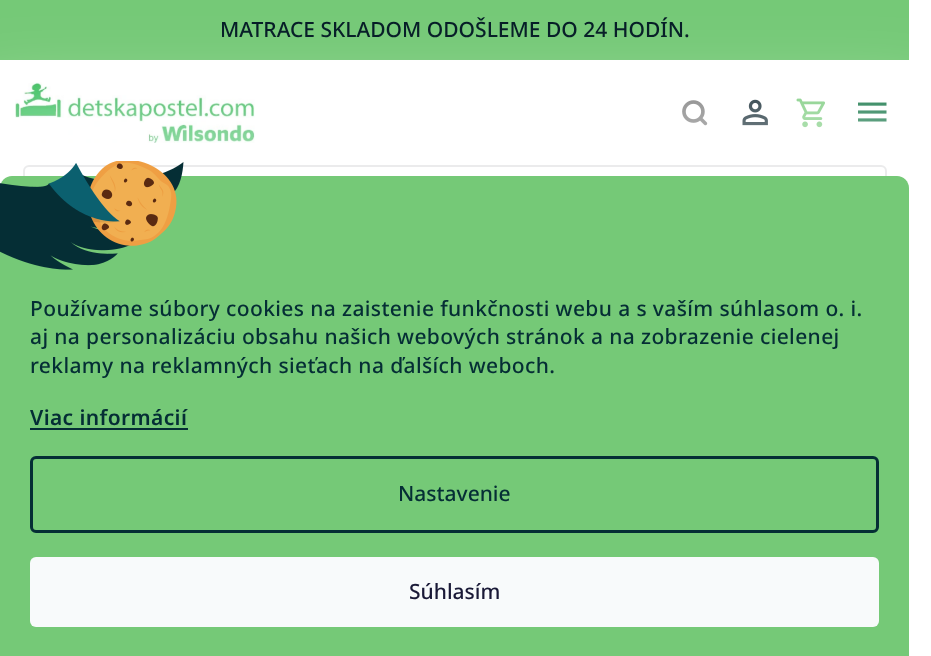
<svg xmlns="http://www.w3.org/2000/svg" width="931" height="656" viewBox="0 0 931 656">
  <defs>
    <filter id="blur1" x="-50%" y="-200%" width="200%" height="500%"><feGaussianBlur stdDeviation="37.5"/></filter>
  </defs>
  <rect width="100%" height="100%" fill="#ffffff"/>
  <rect x="0" y="0" width="909" height="60" fill="#75c977"/>
  <text x="220" y="37" font-family="Noto Sans" font-size="21" font-weight="500" fill="#051c26">MATRACE SKLADOM ODOŠLEME DO 24 HODÍN.</text>
  <image x="682" y="100" width="26" height="26" href="img1.png"/>
  <image x="742" y="99" width="26" height="27" href="img2.png"/>
  <image x="858" y="102" width="29" height="20" href="img3.png"/>
  <image x="15" y="82" width="240" height="61" href="img4.png"/>
  <image x="796" y="98" width="29" height="30" href="img5.png"/>
  <rect x="24" y="166" width="862" height="64" rx="5" fill="none" stroke="#d8d9da" stroke-width="2"/>
  <rect x="-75" y="101" width="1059" height="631" rx="87" fill="#ffffff" fill-opacity="0.5" filter="url(#blur1)"/>
  <path d="M12 176H897C903.5 176 909 181.5 909 188V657H0V188C0 181.5 5.5 176 12 176Z" fill="#75c977"/>
  <image x="0" y="161" width="184" height="109" href="img6.png"/>
  <text x="30" y="316" font-family="Noto Sans" font-size="21" font-weight="500" letter-spacing="0.38" fill="#052e35">Používame súbory cookies na zaistenie funkčnosti webu a s vaším súhlasom o. i.</text>
  <text x="30" y="344" font-family="Noto Sans" font-size="21" font-weight="500" letter-spacing="0.38" fill="#052e35">aj na personalizáciu obsahu našich webových stránok a na zobrazenie cielenej</text>
  <text x="30" y="373" font-family="Noto Sans" font-size="21" font-weight="500" letter-spacing="0.38" fill="#052e35">reklamy na reklamných sieťach na ďalších weboch.</text>
  <text x="30" y="425" font-family="Noto Sans" font-size="21" font-weight="600" letter-spacing="0.38" fill="#052e35">Viac informácií</text>
  <rect x="30" y="428" width="158" height="2" fill="#052e35"/>
  <rect x="31.5" y="457.5" width="846" height="74" rx="4.5" fill="none" stroke="#052e35" stroke-width="3"/>
  <text x="398" y="501" font-family="Noto Sans" font-size="21" font-weight="500" fill="#052e35">Nastavenie</text>
  <rect x="30" y="557" width="849" height="70" rx="6" fill="#f8fafb"/>
  <text x="409" y="599" font-family="Noto Sans" font-size="21" font-weight="500" fill="#1a1937">Súhlasím</text>
</svg>
